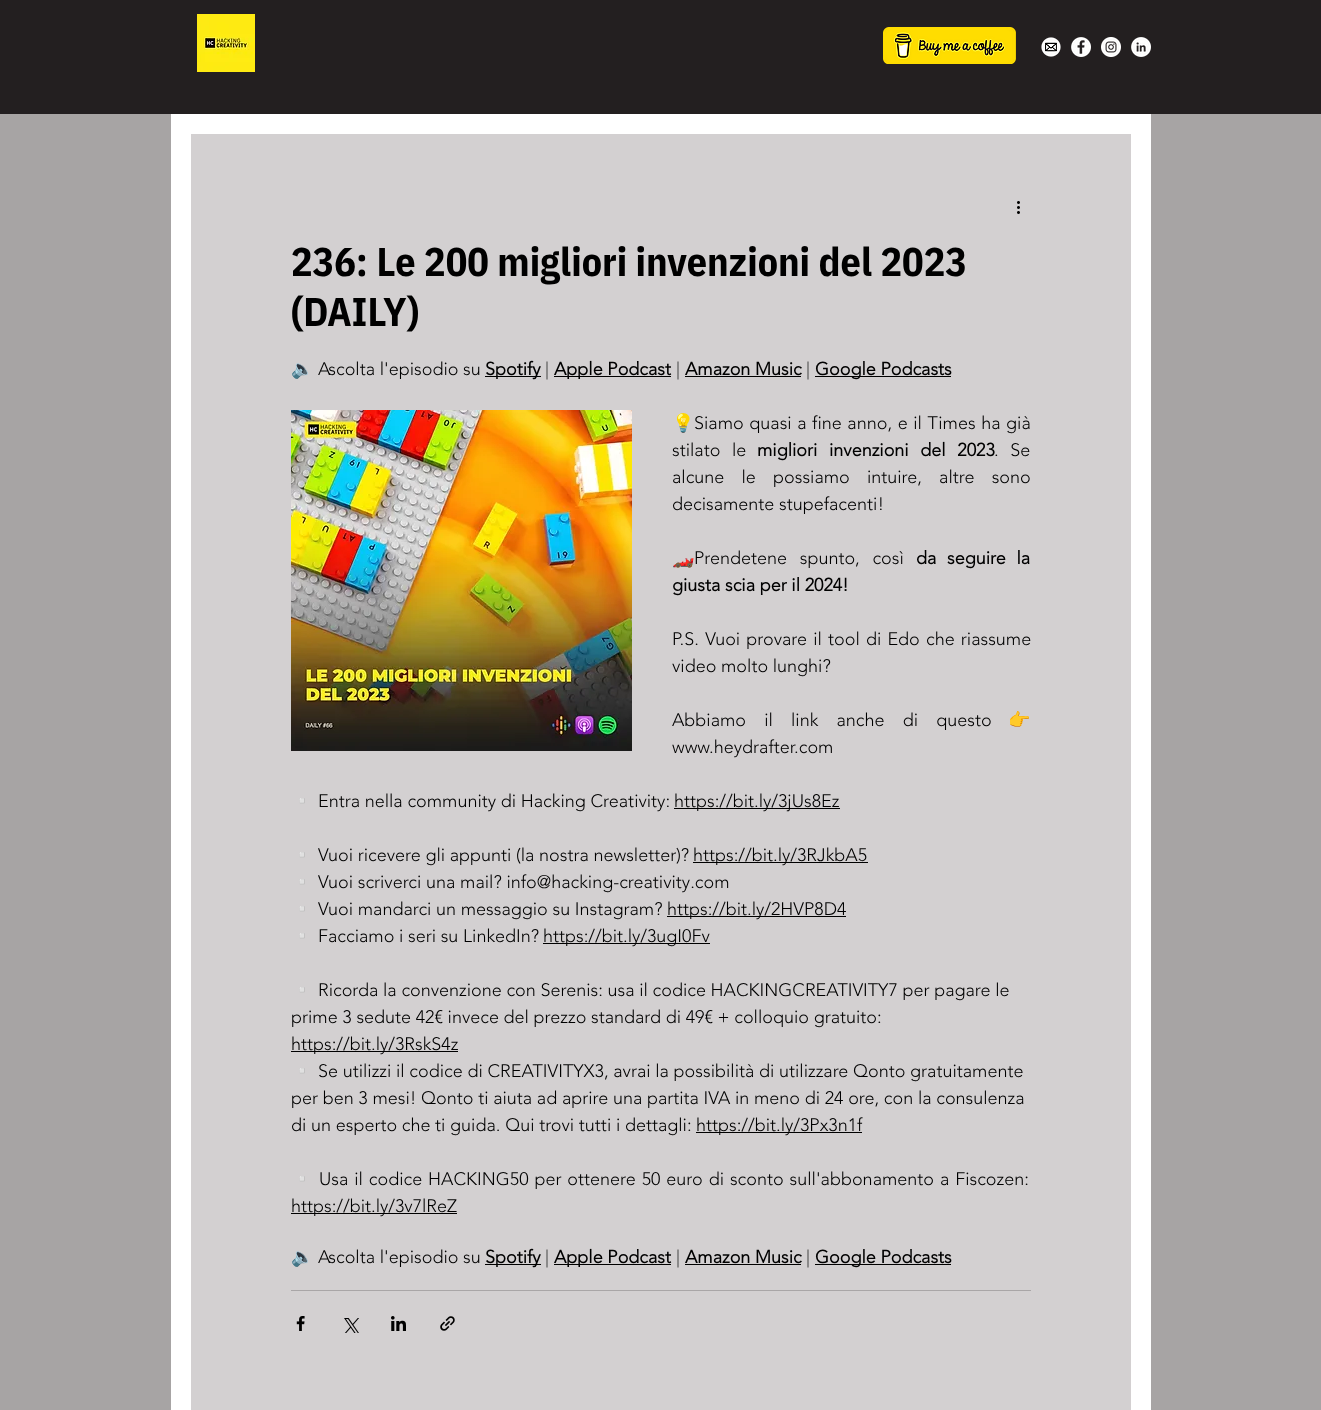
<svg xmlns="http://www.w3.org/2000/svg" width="1321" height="1410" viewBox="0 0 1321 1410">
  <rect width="100%" height="100%" fill="#a7a4a4"/>
  <rect x="0" y="0" width="1321" height="114" fill="#231f20"/>
  <image x="197" y="14" width="58" height="58" href="img1.png"/>
  <image x="883" y="27" width="133" height="37" href="img2.png"/>
  <image x="1041" y="37" width="20" height="20" href="img3.png"/>
  <image x="1071" y="37" width="20" height="20" href="img4.png"/>
  <image x="1101" y="37" width="20" height="20" href="img5.png"/>
  <image x="1131" y="37" width="20" height="20" href="img6.png"/>
  <rect x="171" y="114" width="980" height="1296" fill="#ffffff"/>
  <rect x="191" y="134" width="940" height="1276" fill="#d3d0d1"/>
  <image x="1017" y="201" width="3" height="13" href="img7.png"/>
  <text x="291" y="276" font-family="IBM Plex Sans Condensed" font-size="40" font-weight="bold" fill="#000000">236: Le 200 migliori invenzioni del 2023</text>
  <text x="291" y="326" font-family="IBM Plex Sans Condensed" font-size="40" font-weight="bold" fill="#000000">(DAILY)</text>
  <text x="291" y="375" font-family="Noto Color Emoji" font-size="18" fill="#000000">🔈</text>
  <text x="318" y="375" font-family="'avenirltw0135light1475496'" font-size="18" font-weight="300" fill="#000000">Ascolta l'episodio su</text>
  <rect x="485" y="376" width="56" height="1" fill="#000000"/>
  <text x="485" y="375" font-family="'avenirltw0135light1475496'" font-size="18" font-weight="bold" fill="#000000">Spotify</text>
  <text x="545" y="375" font-family="'avenirltw0135light1475496'" font-size="18" font-weight="300" fill="#333333">|</text>
  <rect x="554" y="376" width="117" height="1" fill="#000000"/>
  <text x="554" y="375" font-family="'avenirltw0135light1475496'" font-size="18" font-weight="bold" fill="#000000">Apple Podcast</text>
  <text x="676" y="375" font-family="'avenirltw0135light1475496'" font-size="18" font-weight="300" fill="#333333">|</text>
  <text x="685" y="375" font-family="'avenirltw0135light1475496'" font-size="18" font-weight="bold" fill="#000000">Amazon Music</text>
  <rect x="685" y="376" width="116" height="1" fill="#000000"/>
  <text x="806" y="375" font-family="'avenirltw0135light1475496'" font-size="18" font-weight="300" fill="#333333">|</text>
  <rect x="815" y="376" width="136" height="1" fill="#000000"/>
  <text x="815" y="375" font-family="'avenirltw0135light1475496'" font-size="18" font-weight="bold" fill="#000000">Google Podcasts</text>
  <image x="291" y="410" width="341" height="341" href="img8.png"/>
  <text x="672" y="429" font-family="Noto Color Emoji" font-size="18" fill="#000000">💡</text>
  <text x="694" y="429" word-spacing="0.9" font-family="'avenirltw0135light1475496'" font-size="18" font-weight="300" fill="#000000">Siamo quasi a fine anno, e il Times ha già</text>
  <text x="672" y="456" word-spacing="7" font-family="'avenirltw0135light1475496'" font-size="18" font-weight="300" fill="#000000">stilato le</text>
  <text x="757" y="456" word-spacing="7" font-family="'avenirltw0135light1475496'" font-size="18" font-weight="bold" fill="#000000">migliori invenzioni del 2023</text>
  <text x="994" y="456" word-spacing="7" font-family="'avenirltw0135light1475496'" font-size="18" font-weight="300" fill="#000000">. Se</text>
  <text x="672" y="483" word-spacing="12.5" font-family="'avenirltw0135light1475496'" font-size="18" font-weight="300" fill="#000000">alcune le possiamo intuire, altre sono</text>
  <text x="672" y="510" font-family="'avenirltw0135light1475496'" font-size="18" font-weight="300" fill="#000000">decisamente stupefacenti!</text>
  <text x="672" y="564" font-family="Noto Color Emoji" font-size="18" fill="#000000">🏎️</text>
  <text x="694" y="564" word-spacing="8" font-family="'avenirltw0135light1475496'" font-size="18" font-weight="300" fill="#000000">Prendetene spunto, così</text>
  <text x="916" y="564" word-spacing="6" font-family="'avenirltw0135light1475496'" font-size="18" font-weight="bold" fill="#000000">da seguire la</text>
  <text x="672" y="591" font-family="'avenirltw0135light1475496'" font-size="18" font-weight="bold" fill="#000000">giusta scia per il 2024!</text>
  <text x="672" y="645" word-spacing="1.5" font-family="'avenirltw0135light1475496'" font-size="18" font-weight="300" fill="#000000">P.S. Vuoi provare il tool di Edo che riassume</text>
  <text x="672" y="672" font-family="'avenirltw0135light1475496'" font-size="18" font-weight="300" fill="#000000">video molto lunghi?</text>
  <text x="672" y="726" word-spacing="13.5" font-family="'avenirltw0135light1475496'" font-size="18" font-weight="300" fill="#000000">Abbiamo il link anche di questo</text>
  <text x="1008" y="726" font-family="Noto Color Emoji" font-size="18" fill="#000000">👉</text>
  <text x="672" y="753" font-family="'avenirltw0135light1475496'" font-size="18" font-weight="300" fill="#000000">www.heydrafter.com</text>
  <text x="291" y="807" font-family="Noto Color Emoji" font-size="18" fill="#000000">▫️</text>
  <text x="318" y="807" font-family="'avenirltw0135light1475496'" font-size="18" font-weight="300" fill="#000000">Entra nella community di Hacking Creativity:</text>
  <rect x="674" y="808" width="166" height="1" fill="#000000"/>
  <text x="674" y="807" font-family="'avenirltw0135light1475496'" font-size="18" font-weight="300" fill="#000000">https://bit.ly/3jUs8Ez</text>
  <text x="291" y="861" font-family="Noto Color Emoji" font-size="18" fill="#000000">▫️</text>
  <text x="318" y="861" font-family="'avenirltw0135light1475496'" font-size="18" font-weight="300" fill="#000000">Vuoi ricevere gli appunti (la nostra newsletter)?</text>
  <rect x="693" y="862" width="175" height="1" fill="#000000"/>
  <text x="693" y="861" font-family="'avenirltw0135light1475496'" font-size="18" font-weight="300" fill="#000000">https://bit.ly/3RJkbA5</text>
  <text x="291" y="888" font-family="Noto Color Emoji" font-size="18" fill="#000000">▫️</text>
  <text x="318" y="888" font-family="'avenirltw0135light1475496'" font-size="18" font-weight="300" fill="#000000">Vuoi scriverci una mail? info@hacking-creativity.com</text>
  <text x="291" y="915" font-family="Noto Color Emoji" font-size="18" fill="#000000">▫️</text>
  <text x="318" y="915" font-family="'avenirltw0135light1475496'" font-size="18" font-weight="300" fill="#000000">Vuoi mandarci un messaggio su Instagram?</text>
  <rect x="667" y="916" width="179" height="1" fill="#000000"/>
  <text x="667" y="915" font-family="'avenirltw0135light1475496'" font-size="18" font-weight="300" fill="#000000">https://bit.ly/2HVP8D4</text>
  <text x="291" y="942" font-family="Noto Color Emoji" font-size="18" fill="#000000">▫️</text>
  <text x="318" y="942" font-family="'avenirltw0135light1475496'" font-size="18" font-weight="300" fill="#000000">Facciamo i seri su LinkedIn?</text>
  <rect x="543" y="943" width="167" height="1" fill="#000000"/>
  <text x="543" y="942" font-family="'avenirltw0135light1475496'" font-size="18" font-weight="300" fill="#000000">https://bit.ly/3ugI0Fv</text>
  <text x="291" y="996" font-family="Noto Color Emoji" font-size="18" fill="#000000">▫️</text>
  <text x="318" y="996" font-family="'avenirltw0135light1475496'" font-size="18" font-weight="300" fill="#000000">Ricorda la convenzione con Serenis: usa il codice HACKINGCREATIVITY7 per pagare le</text>
  <text x="291" y="1023" font-family="'avenirltw0135light1475496'" font-size="18" font-weight="300" fill="#000000">prime 3 sedute 42€ invece del prezzo standard di 49€ + colloquio gratuito:</text>
  <rect x="291" y="1051" width="167" height="1" fill="#000000"/>
  <text x="291" y="1050" font-family="'avenirltw0135light1475496'" font-size="18" font-weight="300" fill="#000000">https://bit.ly/3RskS4z</text>
  <text x="291" y="1077" font-family="Noto Color Emoji" font-size="18" fill="#000000">▫️</text>
  <text x="318" y="1077" font-family="'avenirltw0135light1475496'" font-size="18" font-weight="300" fill="#000000">Se utilizzi il codice di CREATIVITYX3, avrai la possibilità di utilizzare Qonto gratuitamente</text>
  <text x="291" y="1104" font-family="'avenirltw0135light1475496'" font-size="18" font-weight="300" fill="#000000">per ben 3 mesi! Qonto ti aiuta ad aprire una partita IVA in meno di 24 ore, con la consulenza</text>
  <text x="291" y="1131" font-family="'avenirltw0135light1475496'" font-size="18" font-weight="300" fill="#000000">di un esperto che ti guida. Qui trovi tutti i dettagli:</text>
  <rect x="696" y="1132" width="166" height="1" fill="#000000"/>
  <text x="696" y="1131" font-family="'avenirltw0135light1475496'" font-size="18" font-weight="300" fill="#000000">https://bit.ly/3Px3n1f</text>
  <text x="291" y="1185" font-family="Noto Color Emoji" font-size="18" fill="#000000">▫️</text>
  <text x="319" y="1185" word-spacing="1.25" font-family="'avenirltw0135light1475496'" font-size="18" font-weight="300" fill="#000000">Usa il codice HACKING50 per ottenere 50 euro di sconto sull'abbonamento a Fiscozen:</text>
  <rect x="291" y="1213" width="166" height="1" fill="#000000"/>
  <text x="291" y="1212" font-family="'avenirltw0135light1475496'" font-size="18" font-weight="300" fill="#000000">https://bit.ly/3v7lReZ</text>
  <text x="291" y="1263" font-family="Noto Color Emoji" font-size="18" fill="#000000">🔈</text>
  <text x="318" y="1263" font-family="'avenirltw0135light1475496'" font-size="18" font-weight="300" fill="#000000">Ascolta l'episodio su</text>
  <rect x="485" y="1264" width="56" height="1" fill="#000000"/>
  <text x="485" y="1263" font-family="'avenirltw0135light1475496'" font-size="18" font-weight="bold" fill="#000000">Spotify</text>
  <text x="545" y="1263" font-family="'avenirltw0135light1475496'" font-size="18" font-weight="300" fill="#333333">|</text>
  <rect x="554" y="1264" width="117" height="1" fill="#000000"/>
  <text x="554" y="1263" font-family="'avenirltw0135light1475496'" font-size="18" font-weight="bold" fill="#000000">Apple Podcast</text>
  <text x="676" y="1263" font-family="'avenirltw0135light1475496'" font-size="18" font-weight="300" fill="#333333">|</text>
  <text x="685" y="1263" font-family="'avenirltw0135light1475496'" font-size="18" font-weight="bold" fill="#000000">Amazon Music</text>
  <rect x="685" y="1264" width="116" height="1" fill="#000000"/>
  <text x="806" y="1263" font-family="'avenirltw0135light1475496'" font-size="18" font-weight="300" fill="#333333">|</text>
  <rect x="815" y="1264" width="136" height="1" fill="#000000"/>
  <text x="815" y="1263" font-family="'avenirltw0135light1475496'" font-size="18" font-weight="bold" fill="#000000">Google Podcasts</text>
  <rect x="291" y="1290" width="740" height="1" fill="#a9a6a7"/>
  <image x="296" y="1316" width="9" height="15" href="img9.png"/>
  <image x="344" y="1318" width="15" height="15" href="img10.png"/>
  <image x="391" y="1316" width="15" height="15" href="img11.png"/>
  <image x="440" y="1316" width="15" height="15" href="img12.png"/>
</svg>
